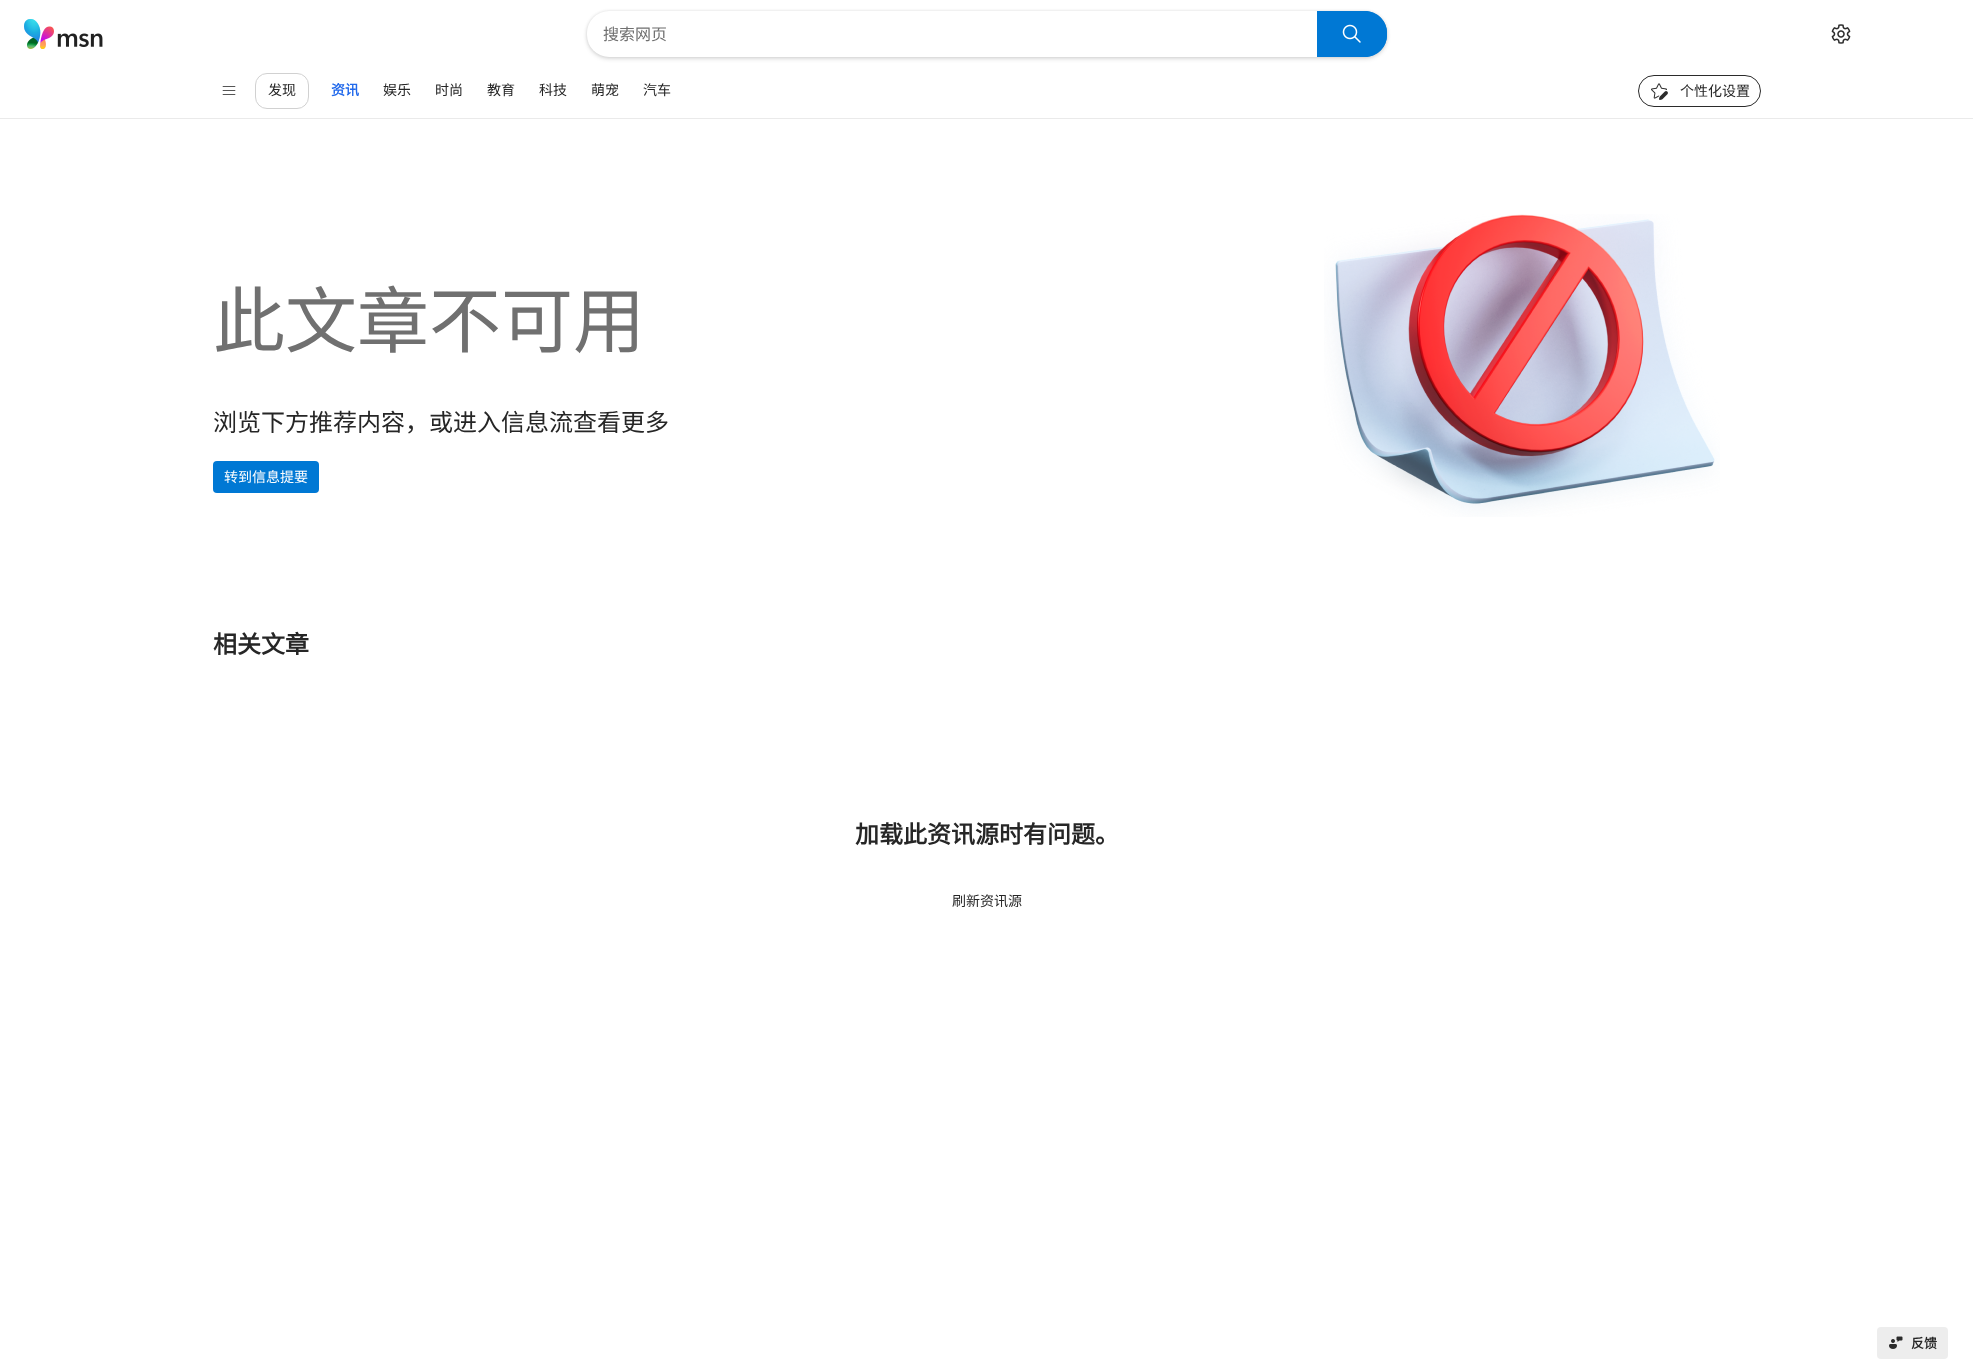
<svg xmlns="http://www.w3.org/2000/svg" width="1973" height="1359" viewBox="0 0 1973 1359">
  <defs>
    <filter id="blur1" x="-50%" y="-200%" width="200%" height="500%"><feGaussianBlur stdDeviation="2"/></filter>
    <filter id="blur2" x="-50%" y="-200%" width="200%" height="500%"><feGaussianBlur stdDeviation="1.5"/></filter>
    <linearGradient id="g1" gradientUnits="userSpaceOnUse" x1="1387" y1="34" x2="587" y2="34"><stop offset="0.01" stop-color="#0078d4"/><stop offset="0.06" stop-color="#ffffff"/></linearGradient>
  </defs>
  <rect width="100%" height="100%" fill="#ffffff"/>
  <image x="24" y="19" width="79" height="30" href="img1.png"/>
  <rect x="587" y="13" width="800" height="46" rx="22" fill="#000000" fill-opacity="0.13" filter="url(#blur1)"/>
  <rect x="587" y="11" width="800" height="46" rx="22" fill="#000000" fill-opacity="0.11" filter="url(#blur2)"/>
  <rect x="587" y="11" width="800" height="46" rx="22" fill="url(#g1)"/>
  <text x="603" y="40" font-family="Noto Sans CJK SC" font-size="16" fill="#707070">搜索网页</text>
  <path d="M1317 11H1365C1377 11 1387 21 1387 33V35C1387 47 1377 57 1365 57H1317Z" fill="#0078d4"/>
  <image x="1342" y="24" width="19" height="19" href="img2.png"/>
  <image x="1831" y="24" width="20" height="20" href="img3.png"/>
  <image x="222" y="86" width="14" height="9" href="img4.png"/>
  <rect x="255.5" y="73.5" width="53" height="35" rx="11.5" fill="none" stroke="#d1d1d1"/>
  <text x="268" y="95" font-family="Noto Sans CJK SC" font-size="14" fill="#262626">发现</text>
  <text x="331" y="95" font-family="Noto Sans CJK SC" font-size="14" font-weight="bold" fill="#2169eb">资讯</text>
  <text x="383" y="95" font-family="Noto Sans CJK SC" font-size="14" fill="#262626">娱乐</text>
  <text x="435" y="95" font-family="Noto Sans CJK SC" font-size="14" fill="#262626">时尚</text>
  <text x="487" y="95" font-family="Noto Sans CJK SC" font-size="14" fill="#262626">教育</text>
  <text x="539" y="95" font-family="Noto Sans CJK SC" font-size="14" fill="#262626">科技</text>
  <text x="591" y="95" font-family="Noto Sans CJK SC" font-size="14" fill="#262626">萌宠</text>
  <text x="643" y="95" font-family="Noto Sans CJK SC" font-size="14" fill="#262626">汽车</text>
  <rect x="1638.5" y="75.5" width="122" height="31" rx="15.5" fill="none" stroke="#2b2b2b"/>
  <image x="1651" y="83" width="17" height="17" href="img5.png"/>
  <text x="1680" y="96" font-family="Noto Sans CJK SC" font-size="14" fill="#262626">个性化设置</text>
  <rect x="0" y="118" width="1973" height="1" fill="#eaeaea"/>
  <text x="213" y="347" font-family="Noto Sans CJK SC" font-size="72" fill="#707070">此文章不可用</text>
  <text x="213" y="431" font-family="Noto Sans CJK SC" font-size="24" fill="#262626">浏览下方推荐内容，或进入信息流查看更多</text>
  <rect x="213" y="461" width="106" height="32" rx="4" fill="#0078d4"/>
  <text x="224" y="482" font-family="Noto Sans CJK SC" font-size="14" fill="#ffffff">转到信息提要</text>
  <image x="1324" y="214" width="396" height="303" href="img6.png"/>
  <text x="213" y="653" font-family="Noto Sans CJK SC" font-size="24" font-weight="bold" fill="#262626">相关文章</text>
  <text x="855" y="843" font-family="Noto Sans CJK SC" font-size="24" font-weight="bold" fill="#262626">加载此资讯源时有问题。</text>
  <text x="952" y="906" font-family="Noto Sans CJK SC" font-size="14" fill="#262626">刷新资讯源</text>
  <rect x="1877" y="1327" width="71" height="32" rx="4" fill="#ededed"/>
  <image x="1889" y="1336" width="14" height="13" href="img7.png"/>
  <text x="1911" y="1348" font-family="Noto Sans CJK SC" font-size="13" font-weight="bold" fill="#262626">反馈</text>
</svg>
